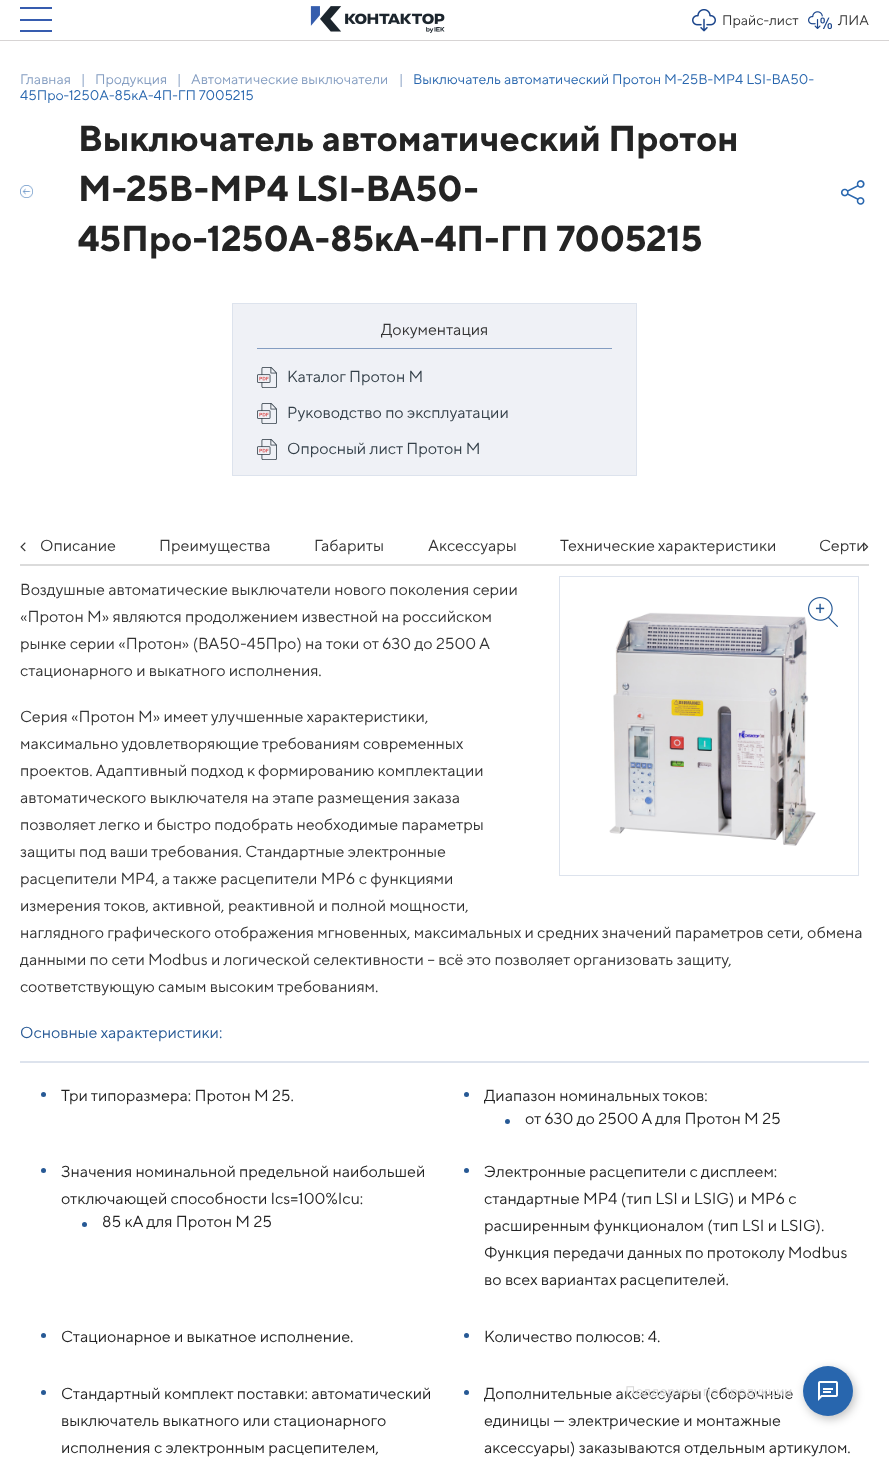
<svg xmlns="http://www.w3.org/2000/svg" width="889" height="1472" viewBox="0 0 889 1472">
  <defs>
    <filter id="blur1" x="-50%" y="-200%" width="200%" height="500%"><feGaussianBlur stdDeviation="5"/></filter>
  </defs>
  <rect width="100%" height="100%" fill="#ffffff"/>
  <rect x="0" y="40" width="889" height="1" fill="#d7d4d4"/>
  <rect x="20" y="7" width="32" height="2" fill="#365caf"/>
  <rect x="20" y="19" width="32" height="2" fill="#365caf"/>
  <rect x="20" y="30" width="32" height="2" fill="#365caf"/>
  <image x="310" y="6" width="135" height="27" href="img1.png"/>
  <image x="692" y="9" width="24" height="23" href="img2.png"/>
  <text x="722" y="25" font-family="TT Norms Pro" font-size="14" fill="#333333">Прайс-лист</text>
  <image x="808" y="11" width="24" height="19" href="img3.png"/>
  <text x="838" y="25" font-family="TT Norms Pro" font-size="14" fill="#333333">ЛИА</text>
  <text x="20" y="84" font-family="TT Norms Pro" font-size="14" fill="#849dc1">Главная</text>
  <text x="81" y="84" font-family="TT Norms Pro" font-size="14" fill="#849dc1">|</text>
  <text x="95" y="84" font-family="TT Norms Pro" font-size="14" fill="#849dc1">Продукция</text>
  <text x="177" y="84" font-family="TT Norms Pro" font-size="14" fill="#849dc1">|</text>
  <text x="191" y="84" font-family="TT Norms Pro" font-size="14" fill="#849dc1">Автоматические выключатели</text>
  <text x="399" y="84" font-family="TT Norms Pro" font-size="14" fill="#849dc1">|</text>
  <text x="413" y="84" font-family="TT Norms Pro" font-size="14" fill="#2866ae">Выключатель автоматический Протон М-25В-МР4 LSI-ВА50-</text>
  <text x="20" y="100" font-family="TT Norms Pro" font-size="14" fill="#2866ae">45Про-1250А-85кА-4П-ГП 7005215</text>
  <image x="20" y="185" width="13" height="13" href="img4.png"/>
  <text x="78" y="151" font-family="TT Norms Pro" font-size="36" font-weight="bold" fill="#242424">Выключатель автоматический Протон</text>
  <text x="78" y="201" font-family="TT Norms Pro" font-size="36" font-weight="bold" fill="#242424">М-25В-МР4 LSI-ВА50-</text>
  <text x="78" y="251" font-family="TT Norms Pro" font-size="36" font-weight="bold" fill="#242424">45Про-1250А-85кА-4П-ГП 7005215</text>
  <image x="840" y="180" width="25" height="25" href="img5.png"/>
  <rect x="232.5" y="303.5" width="404" height="172" fill="#eff1f6" stroke="#dde3ed"/>
  <rect x="257" y="348" width="355" height="1" fill="#849dc1"/>
  <text x="381" y="335" font-family="TT Norms Pro" font-size="16" fill="#333333">Документация</text>
  <image x="257" y="367" width="20" height="21" href="img6.png"/>
  <text x="287" y="382" font-family="TT Norms Pro" font-size="16" fill="#333f48">Каталог Протон М</text>
  <image x="257" y="403" width="20" height="21" href="img6.png"/>
  <text x="287" y="418" font-family="TT Norms Pro" font-size="16" fill="#333f48">Руководство по эксплуатации</text>
  <image x="257" y="439" width="20" height="21" href="img6.png"/>
  <text x="287" y="454" font-family="TT Norms Pro" font-size="16" fill="#333f48">Опросный лист Протон М</text>
  <image x="20" y="542" width="6" height="10" href="img7.png"/>
  <rect x="20" y="564" width="849" height="2" fill="#dbdbdb"/>
  <text x="40" y="551" font-family="TT Norms Pro" font-size="16" fill="#333333">Описание</text>
  <text x="159" y="551" font-family="TT Norms Pro" font-size="16" fill="#333333">Преимущества</text>
  <text x="314" y="551" font-family="TT Norms Pro" font-size="16" fill="#333333">Габариты</text>
  <text x="428" y="551" font-family="TT Norms Pro" font-size="16" fill="#333333">Аксессуары</text>
  <text x="560" y="551" font-family="TT Norms Pro" font-size="16" fill="#333333">Технические характеристики</text>
  <text x="819" y="551" font-family="TT Norms Pro" font-size="16" fill="#333333">Серти</text>
  <image x="863" y="542" width="6" height="10" href="img8.png"/>
  <rect x="559.5" y="576.5" width="299" height="299" fill="none" stroke="#dde3ed"/>
  <image x="609" y="612" width="207" height="234" href="img9.png"/>
  <image x="808" y="597" width="30" height="30" href="img10.png"/>
  <text x="20" y="595" font-family="TT Norms Pro" font-size="16" fill="#333333">Воздушные автоматические выключатели нового поколения серии</text>
  <text x="20" y="622" font-family="TT Norms Pro" font-size="16" fill="#333333">«Протон М» являются продолжением известной на российском</text>
  <text x="20" y="649" font-family="TT Norms Pro" font-size="16" fill="#333333">рынке серии «Протон» (ВА50-45Про) на токи от 630 до 2500 А</text>
  <text x="20" y="676" font-family="TT Norms Pro" font-size="16" fill="#333333">cтационарного и выкатного исполнения.</text>
  <text x="20" y="722" font-family="TT Norms Pro" font-size="16" fill="#333333">Серия «Протон М» имеет улучшенные характеристики,</text>
  <text x="20" y="749" font-family="TT Norms Pro" font-size="16" fill="#333333">максимально удовлетворяющие требованиям современных</text>
  <text x="20" y="776" font-family="TT Norms Pro" font-size="16" fill="#333333">проектов. Адаптивный подход к формированию комплектации</text>
  <text x="20" y="803" font-family="TT Norms Pro" font-size="16" fill="#333333">автоматического выключателя на этапе размещения заказа</text>
  <text x="20" y="830" font-family="TT Norms Pro" font-size="16" fill="#333333">позволяет легко и быстро подобрать необходимые параметры</text>
  <text x="20" y="857" font-family="TT Norms Pro" font-size="16" fill="#333333">защиты под ваши требования. Стандартные электронные</text>
  <text x="20" y="884" font-family="TT Norms Pro" font-size="16" fill="#333333">расцепители МР4, а также расцепители МР6 с функциями</text>
  <text x="20" y="911" font-family="TT Norms Pro" font-size="16" fill="#333333">измерения токов, активной, реактивной и полной мощности,</text>
  <text x="20" y="938" font-family="TT Norms Pro" font-size="16" fill="#333333">наглядного графического отображения мгновенных, максимальных и средних значений параметров сети, обмена</text>
  <text x="20" y="965" font-family="TT Norms Pro" font-size="16" fill="#333333">данными по сети Modbus и логической селективности – всё это позволяет организовать защиту,</text>
  <text x="20" y="992" font-family="TT Norms Pro" font-size="16" fill="#333333">соответствующую самым высоким требованиям.</text>
  <rect x="20" y="1061" width="849" height="2" fill="#dde3ed"/>
  <text x="20" y="1038" font-family="TT Norms Pro" font-size="16" fill="#275995">Основные характеристики:</text>
  <circle cx="43.5" cy="1094.5" r="2.5" fill="#275995"/>
  <text x="61" y="1101" font-family="TT Norms Pro" font-size="16" fill="#242424">Три типоразмера: Протон М 25.</text>
  <circle cx="466.5" cy="1094.5" r="2.5" fill="#275995"/>
  <text x="484" y="1101" font-family="TT Norms Pro" font-size="16" fill="#242424">Диапазон номинальных токов:</text>
  <circle cx="507.5" cy="1121.5" r="2.5" fill="#275995"/>
  <text x="525" y="1124" font-family="TT Norms Pro" font-size="16" fill="#242424">от 630 до 2500 А для Протон М 25</text>
  <circle cx="43.5" cy="1170.5" r="2.5" fill="#275995"/>
  <text x="61" y="1177" font-family="TT Norms Pro" font-size="16" fill="#242424">Значения номинальной предельной наибольшей</text>
  <text x="61" y="1204" font-family="TT Norms Pro" font-size="16" fill="#242424">отключающей способности Ics=100%Icu:</text>
  <circle cx="84.5" cy="1224.5" r="2.5" fill="#275995"/>
  <text x="102" y="1227" font-family="TT Norms Pro" font-size="16" fill="#242424">85 кА для Протон М 25</text>
  <circle cx="466.5" cy="1170.5" r="2.5" fill="#275995"/>
  <text x="484" y="1177" font-family="TT Norms Pro" font-size="16" fill="#242424">Электронные расцепители с дисплеем:</text>
  <text x="484" y="1204" font-family="TT Norms Pro" font-size="16" fill="#242424">стандартные MP4 (тип LSI и LSIG) и MP6 с</text>
  <text x="484" y="1231" font-family="TT Norms Pro" font-size="16" fill="#242424">расширенным функционалом (тип LSI и LSIG).</text>
  <text x="484" y="1258" font-family="TT Norms Pro" font-size="16" fill="#242424">Функция передачи данных по протоколу Modbus</text>
  <text x="484" y="1285" font-family="TT Norms Pro" font-size="16" fill="#242424">во всех вариантах расцепителей.</text>
  <circle cx="43.5" cy="1335.5" r="2.5" fill="#275995"/>
  <text x="61" y="1342" font-family="TT Norms Pro" font-size="16" fill="#242424">Стационарное и выкатное исполнение.</text>
  <circle cx="466.5" cy="1335.5" r="2.5" fill="#275995"/>
  <text x="484" y="1342" font-family="TT Norms Pro" font-size="16" fill="#242424">Количество полюсов: 4.</text>
  <circle cx="43.5" cy="1392.5" r="2.5" fill="#275995"/>
  <text x="61" y="1399" font-family="TT Norms Pro" font-size="16" fill="#242424">Стандартный комплект поставки: автоматический</text>
  <text x="61" y="1426" font-family="TT Norms Pro" font-size="16" fill="#242424">выключатель выкатного или стационарного</text>
  <text x="61" y="1453" font-family="TT Norms Pro" font-size="16" fill="#242424">исполнения с электронным расцепителем,</text>
  <circle cx="466.5" cy="1392.5" r="2.5" fill="#275995"/>
  <text x="484" y="1399" font-family="TT Norms Pro" font-size="16" fill="#242424">Дополнительные аксессуары (сборочные</text>
  <text x="484" y="1426" font-family="TT Norms Pro" font-size="16" fill="#242424">единицы — электрические и монтажные</text>
  <text x="484" y="1453" font-family="TT Norms Pro" font-size="16" fill="#242424">аксессуары) заказываются отдельным артикулом.</text>
  <rect x="805" y="1369" width="50" height="50" rx="25" fill="#000000" fill-opacity="0.25" filter="url(#blur1)"/>
  <circle cx="828" cy="1391" r="25" fill="#2866ae"/>
  <text x="625" y="1396" font-family="TT Norms Pro" font-size="14" fill="#d6d6d6">Поддержка по продукции</text>
  <image x="818" y="1381" width="20" height="20" href="img11.png"/>
</svg>
